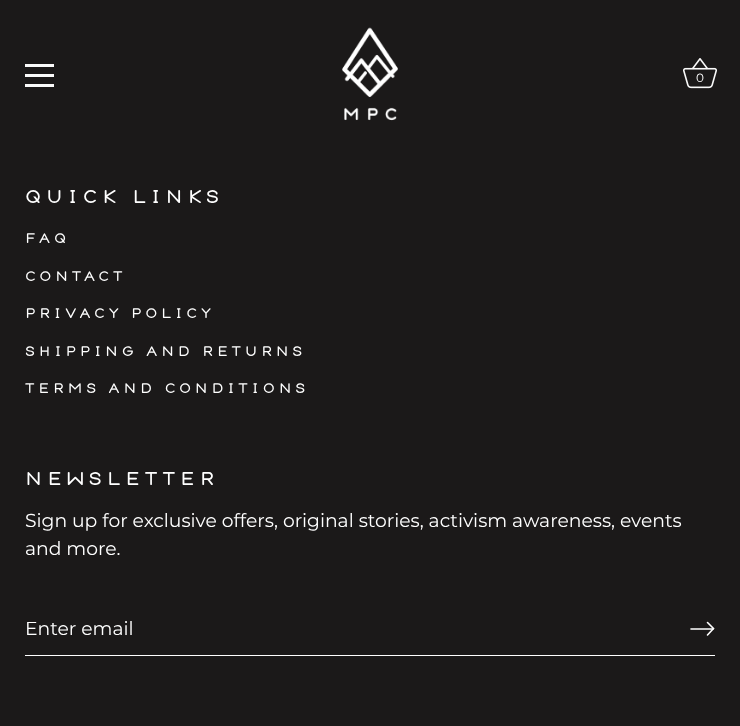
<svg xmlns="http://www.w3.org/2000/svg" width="740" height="726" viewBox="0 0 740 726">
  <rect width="100%" height="100%" fill="#1b1919"/>
  <rect x="25" y="64" width="29" height="3" fill="#fafafa"/>
  <rect x="25" y="74" width="29" height="3" fill="#fafafa"/>
  <rect x="25" y="84" width="29" height="3" fill="#fafafa"/>
  <image x="342" y="27" width="56" height="94" href="img1.png"/>
  <image x="683" y="58" width="34" height="31" href="img2.png"/>
  <text x="696" y="82" font-family="Montserrat" font-size="12" fill="#ffffff">0</text>
  <text x="25" y="203" font-family="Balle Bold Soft" font-size="25" font-weight="bold" letter-spacing="5" fill="#ffffff">QUICK LINKS</text>
  <text x="25" y="243" font-family="Balle Bold Soft" font-size="18.75" font-weight="bold" letter-spacing="3.75" fill="#ffffff">FAQ</text>
  <text x="25" y="281" font-family="Balle Bold Soft" font-size="18.75" font-weight="bold" letter-spacing="3.75" fill="#ffffff">CONTACT</text>
  <text x="25" y="318" font-family="Balle Bold Soft" font-size="18.75" font-weight="bold" letter-spacing="3.75" fill="#ffffff">PRIVACY POLICY</text>
  <text x="25" y="356" font-family="Balle Bold Soft" font-size="18.75" font-weight="bold" letter-spacing="3.75" fill="#ffffff">SHIPPING AND RETURNS</text>
  <text x="25" y="393" font-family="Balle Bold Soft" font-size="18.75" font-weight="bold" letter-spacing="3.75" fill="#ffffff">TERMS AND CONDITIONS</text>
  <text x="25" y="485" font-family="Balle Bold Soft" font-size="25" font-weight="bold" letter-spacing="5" fill="#ffffff">NEWSLETTER</text>
  <text x="25" y="527" font-family="Montserrat" font-size="18.75" fill="#ffffff">Sign up for exclusive offers, original stories, activism awareness, events</text>
  <text x="25" y="555" font-family="Montserrat" font-size="18.75" fill="#ffffff">and more.</text>
  <rect x="25" y="655" width="690" height="1" fill="#ffffff"/>
  <text x="25" y="635" font-family="Montserrat" font-size="18.75" fill="#ffffff">Enter email</text>
  <path d="M707.5 635L713.5 628.5L707.5 622.5" fill="none" stroke="#ffffff" stroke-width="1.6" stroke-linecap="round"/>
  <path d="M713 629H691" fill="none" stroke="#ffffff" stroke-width="1.6" stroke-linecap="round" stroke-linejoin="round"/>
</svg>
